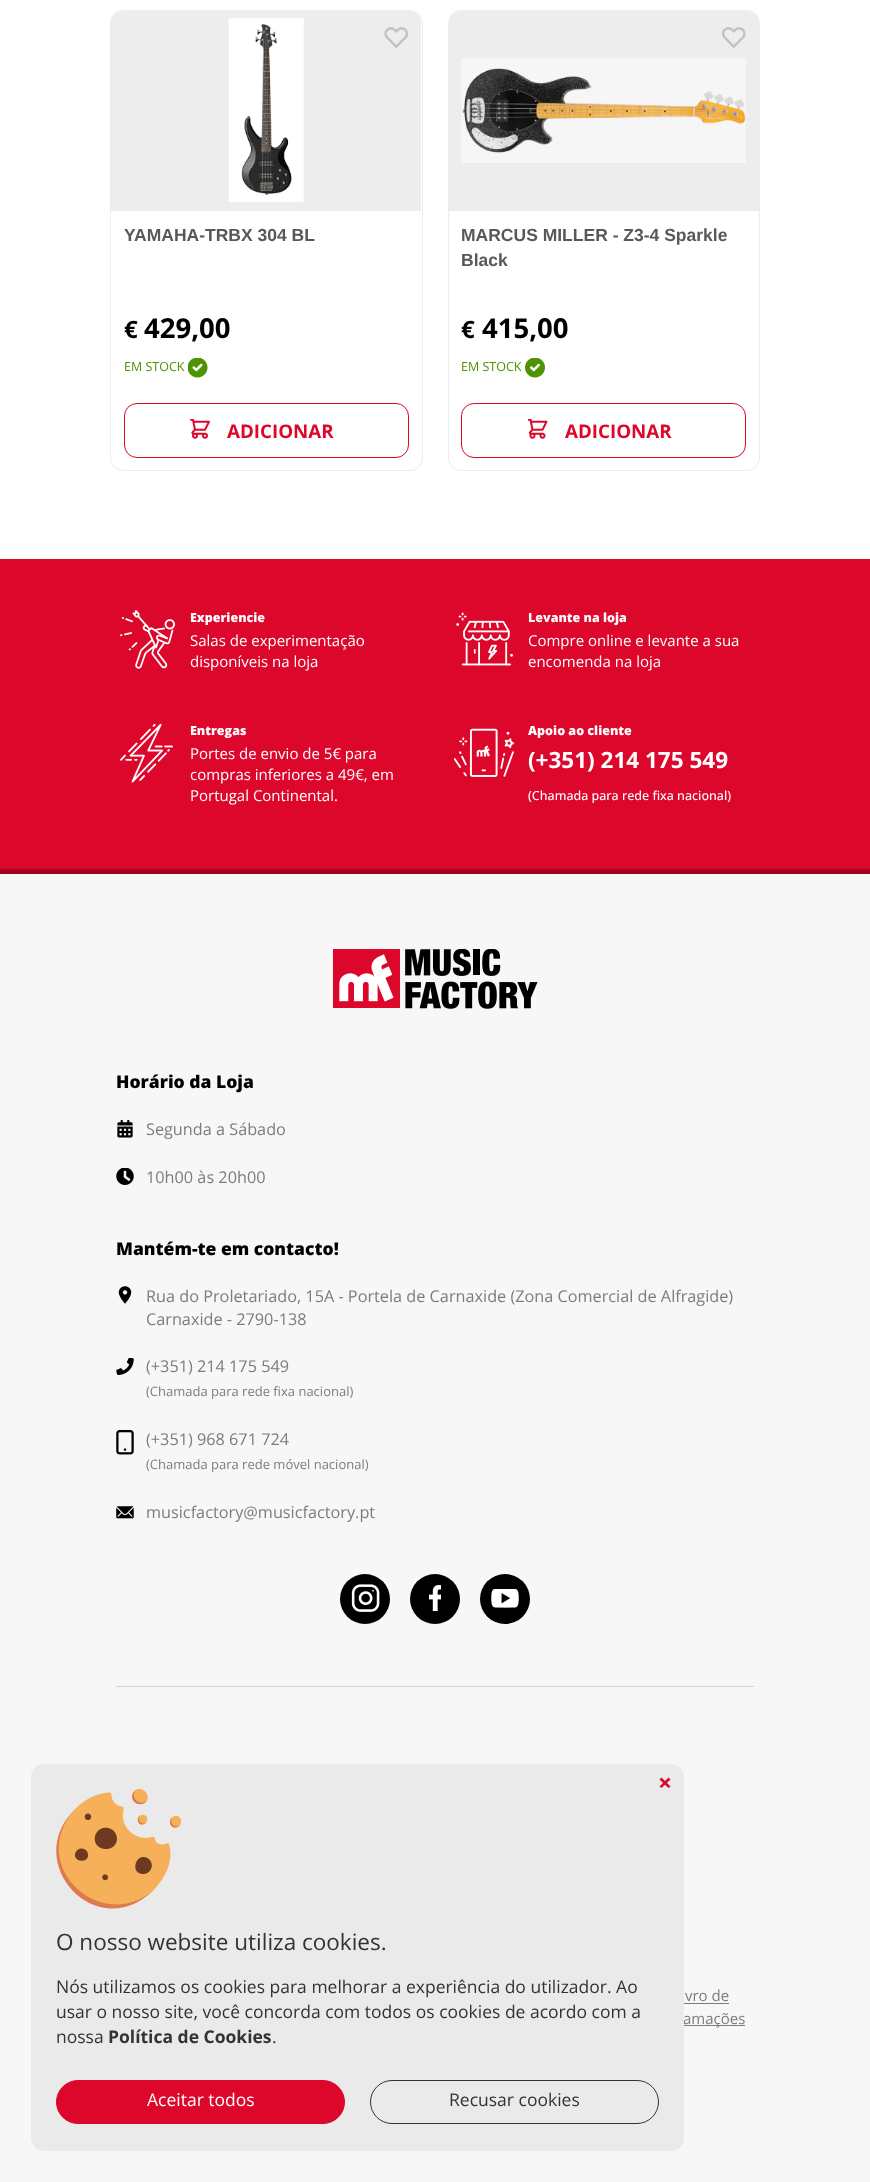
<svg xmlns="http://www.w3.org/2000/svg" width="870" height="2182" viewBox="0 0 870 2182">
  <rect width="100%" height="100%" fill="#ffffff"/>
  <rect x="110.5" y="10.5" width="312" height="460" rx="12.5" fill="none" stroke="#ededed"/>
  <path d="M122 11H410C416 11 421 16 421 22V211H111V22C111 16 116 11 122 11Z" fill="#ededed"/>
  <image x="228" y="18" width="76" height="184" href="img1.png"/>
  <image x="384" y="27" width="24" height="21" href="img2.png"/>
  <text x="124" y="241" font-family="Liberation Sans" font-size="17.5" font-weight="bold" fill="#585858">YAMAHA-TRBX 304 BL</text>
  <text x="124" y="338" font-family="Open Sans" font-size="24" font-weight="bold" fill="#000000">€</text>
  <text x="144" y="338" font-family="Open Sans" font-size="27.5" font-weight="bold" fill="#000000">429,00</text>
  <text x="124" y="371" font-family="Open Sans" font-size="12.5" fill="#4d9302">EM STOCK</text>
  <image x="188" y="358" width="20" height="20" href="img3.png"/>
  <rect x="124.5" y="403.5" width="284" height="54" rx="12.5" fill="none" stroke="#dd062b"/>
  <image x="190" y="419" width="20" height="20" href="img4.png"/>
  <text x="227" y="438" font-family="Open Sans" font-size="18.75" font-weight="bold" fill="#dd062b">ADICIONAR</text>
  <rect x="448.5" y="10.5" width="311" height="460" rx="12.5" fill="none" stroke="#ededed"/>
  <path d="M460 11H748C754 11 759 16 759 22V211H449V22C449 16 454 11 460 11Z" fill="#ededed"/>
  <image x="461" y="58" width="285" height="105" href="img5.png"/>
  <image x="722" y="27" width="24" height="21" href="img6.png"/>
  <text x="461" y="241" font-family="Liberation Sans" font-size="17.5" font-weight="bold" fill="#585858">MARCUS MILLER - Z3-4 Sparkle</text>
  <text x="461" y="266" font-family="Liberation Sans" font-size="17.5" font-weight="bold" fill="#585858">Black</text>
  <text x="461" y="338" font-family="Open Sans" font-size="24" font-weight="bold" fill="#000000">€</text>
  <text x="482" y="338" font-family="Open Sans" font-size="27.5" font-weight="bold" fill="#000000">415,00</text>
  <text x="461" y="371" font-family="Open Sans" font-size="12.5" fill="#4d9302">EM STOCK</text>
  <image x="525" y="358" width="20" height="20" href="img7.png"/>
  <rect x="461.5" y="403.5" width="284" height="54" rx="12.5" fill="none" stroke="#dd062b"/>
  <image x="528" y="419" width="20" height="20" href="img8.png"/>
  <text x="565" y="438" font-family="Open Sans" font-size="18.75" font-weight="bold" fill="#dd062b">ADICIONAR</text>
  <rect x="0" y="559" width="870" height="310" fill="#dd062b"/>
  <rect x="0" y="869" width="870" height="5" fill="#a0001c"/>
  <image x="120" y="610" width="55" height="59" href="img9.png"/>
  <text x="190" y="622" font-family="Open Sans" font-size="12.5" font-weight="800" fill="#ffffff">Experiencie</text>
  <text x="190" y="646" font-family="Open Sans" font-size="15" fill="#ffffff">Salas de experimentação</text>
  <text x="190" y="667" font-family="Open Sans" font-size="15" fill="#ffffff">disponíveis na loja</text>
  <image x="456" y="612" width="57" height="54" href="img10.png"/>
  <text x="528" y="622" font-family="Open Sans" font-size="12.5" font-weight="800" fill="#ffffff">Levante na loja</text>
  <text x="528" y="646" font-family="Open Sans" font-size="15" fill="#ffffff">Compre online e levante a sua</text>
  <text x="528" y="667" font-family="Open Sans" font-size="15" fill="#ffffff">encomenda na loja</text>
  <image x="120" y="724" width="53" height="59" href="img11.png"/>
  <text x="190" y="735" font-family="Open Sans" font-size="12.5" font-weight="800" fill="#ffffff">Entregas</text>
  <text x="190" y="759" font-family="Open Sans" font-size="15" fill="#ffffff">Portes de envio de 5€ para</text>
  <text x="190" y="780" font-family="Open Sans" font-size="15" fill="#ffffff">compras inferiores a 49€, em</text>
  <text x="190" y="801" font-family="Open Sans" font-size="15" fill="#ffffff">Portugal Continental.</text>
  <image x="454" y="728" width="61" height="49" href="img12.png"/>
  <text x="528" y="735" font-family="Open Sans" font-size="12.5" font-weight="800" fill="#ffffff">Apoio ao cliente</text>
  <text x="528" y="768" font-family="Open Sans" font-size="22.5" font-weight="bold" fill="#ffffff">(+351) 214 175 549</text>
  <text x="528" y="800" font-family="Open Sans" font-size="12.5" font-weight="500" fill="#ffffff">(Chamada para rede fixa nacional)</text>
  <rect x="0" y="874" width="870" height="1308" fill="#f7f7f7"/>
  <image x="333" y="949" width="205" height="60" href="img13.png"/>
  <text x="116" y="1088" font-family="Open Sans" font-size="17.5" font-weight="800" fill="#000000">Horário da Loja</text>
  <image x="117" y="1120" width="16" height="18" href="img14.png"/>
  <text x="146" y="1135" font-family="Open Sans" font-size="16.25" fill="#7c7c7c">Segunda a Sábado</text>
  <image x="116" y="1168" width="18" height="17" href="img15.png"/>
  <text x="146" y="1183" font-family="Open Sans" font-size="16.25" fill="#7c7c7c">10h00 às 20h00</text>
  <text x="116" y="1255" font-family="Open Sans" font-size="17.5" font-weight="800" fill="#000000">Mantém-te em contacto!</text>
  <image x="118" y="1286" width="14" height="18" href="img16.png"/>
  <text x="146" y="1302" font-family="Open Sans" font-size="16.25" fill="#7c7c7c">Rua do Proletariado, 15A - Portela de Carnaxide (Zona Comercial de Alfragide)</text>
  <text x="146" y="1325" font-family="Open Sans" font-size="16.25" fill="#7c7c7c">Carnaxide - 2790-138</text>
  <image x="116" y="1358" width="18" height="17" href="img17.png"/>
  <text x="146" y="1372" font-family="Open Sans" font-size="16.25" fill="#7c7c7c">(+351) 214 175 549</text>
  <text x="146" y="1396" font-family="Open Sans" font-size="13" fill="#7c7c7c">(Chamada para rede fixa nacional)</text>
  <image x="116" y="1430" width="18" height="25" href="img18.png"/>
  <text x="146" y="1445" font-family="Open Sans" font-size="16.25" fill="#7c7c7c">(+351) 968 671 724</text>
  <text x="146" y="1469" font-family="Open Sans" font-size="13" fill="#7c7c7c">(Chamada para rede móvel nacional)</text>
  <image x="116" y="1506" width="18" height="13" href="img19.png"/>
  <text x="146" y="1518" font-family="Open Sans" font-size="16.25" fill="#7c7c7c">musicfactory@musicfactory.pt</text>
  <circle cx="365" cy="1599" r="25" fill="#000000"/>
  <image x="351" y="1584" width="29" height="28" href="img20.png"/>
  <circle cx="435" cy="1599" r="25" fill="#000000"/>
  <image x="429" y="1585" width="12" height="26" href="img21.png"/>
  <circle cx="505" cy="1599" r="25" fill="#000000"/>
  <image x="491" y="1589" width="28" height="19" href="img22.png"/>
  <rect x="116" y="1686" width="638" height="1" fill="#d5d5d5"/>
  <text x="685" y="2001" font-family="Open Sans" font-size="15" fill="#7c7c7c">vro de</text>
  <rect x="684" y="2003" width="45" height="1" fill="#7c7c7c"/>
  <rect x="684" y="2025" width="61" height="1" fill="#7c7c7c"/>
  <text x="683" y="2024" font-family="Open Sans" font-size="15" fill="#7c7c7c">amações</text>
  <rect x="31" y="1764" width="653" height="387" rx="13" fill="#eaeaea"/>
  <path d="M668.5 1777.5L670.5 1779.5L661.5 1788L659.5 1786.5Z" fill="#dd062b"/>
  <path d="M659.5 1779.5L661.5 1777.5L670.5 1786.5L668.5 1788Z" fill="#dd062b"/>
  <image x="56" y="1789" width="125" height="120" href="img23.png"/>
  <text x="56" y="1950" font-family="Open Sans" font-size="22.5" fill="#333333">O nosso website utiliza cookies.</text>
  <text x="56" y="1993" font-family="Open Sans" font-size="17.5" fill="#333333">Nós utilizamos os cookies para melhorar a experiência do utilizador. Ao</text>
  <text x="56" y="2018" font-family="Open Sans" font-size="17.5" fill="#333333">usar o nosso site, você concorda com todos os cookies de acordo com a</text>
  <text x="56" y="2043" font-family="Open Sans" font-size="17.5" fill="#333333">nossa</text>
  <text x="108" y="2043" font-family="Open Sans" font-size="17.5" font-weight="bold" fill="#333333">Política de Cookies</text>
  <text x="272" y="2043" font-family="Open Sans" font-size="17.5" fill="#333333">.</text>
  <rect x="56.5" y="2080.5" width="288" height="43" rx="21.5" fill="#dd062b" stroke="#dd062b"/>
  <text x="147" y="2106" font-family="Open Sans" font-size="17.5" fill="#ffffff">Aceitar todos</text>
  <rect x="370.5" y="2080.5" width="288" height="43" rx="21.5" fill="none" stroke="#333333"/>
  <text x="449" y="2106" font-family="Open Sans" font-size="17.5" fill="#333333">Recusar cookies</text>
</svg>
